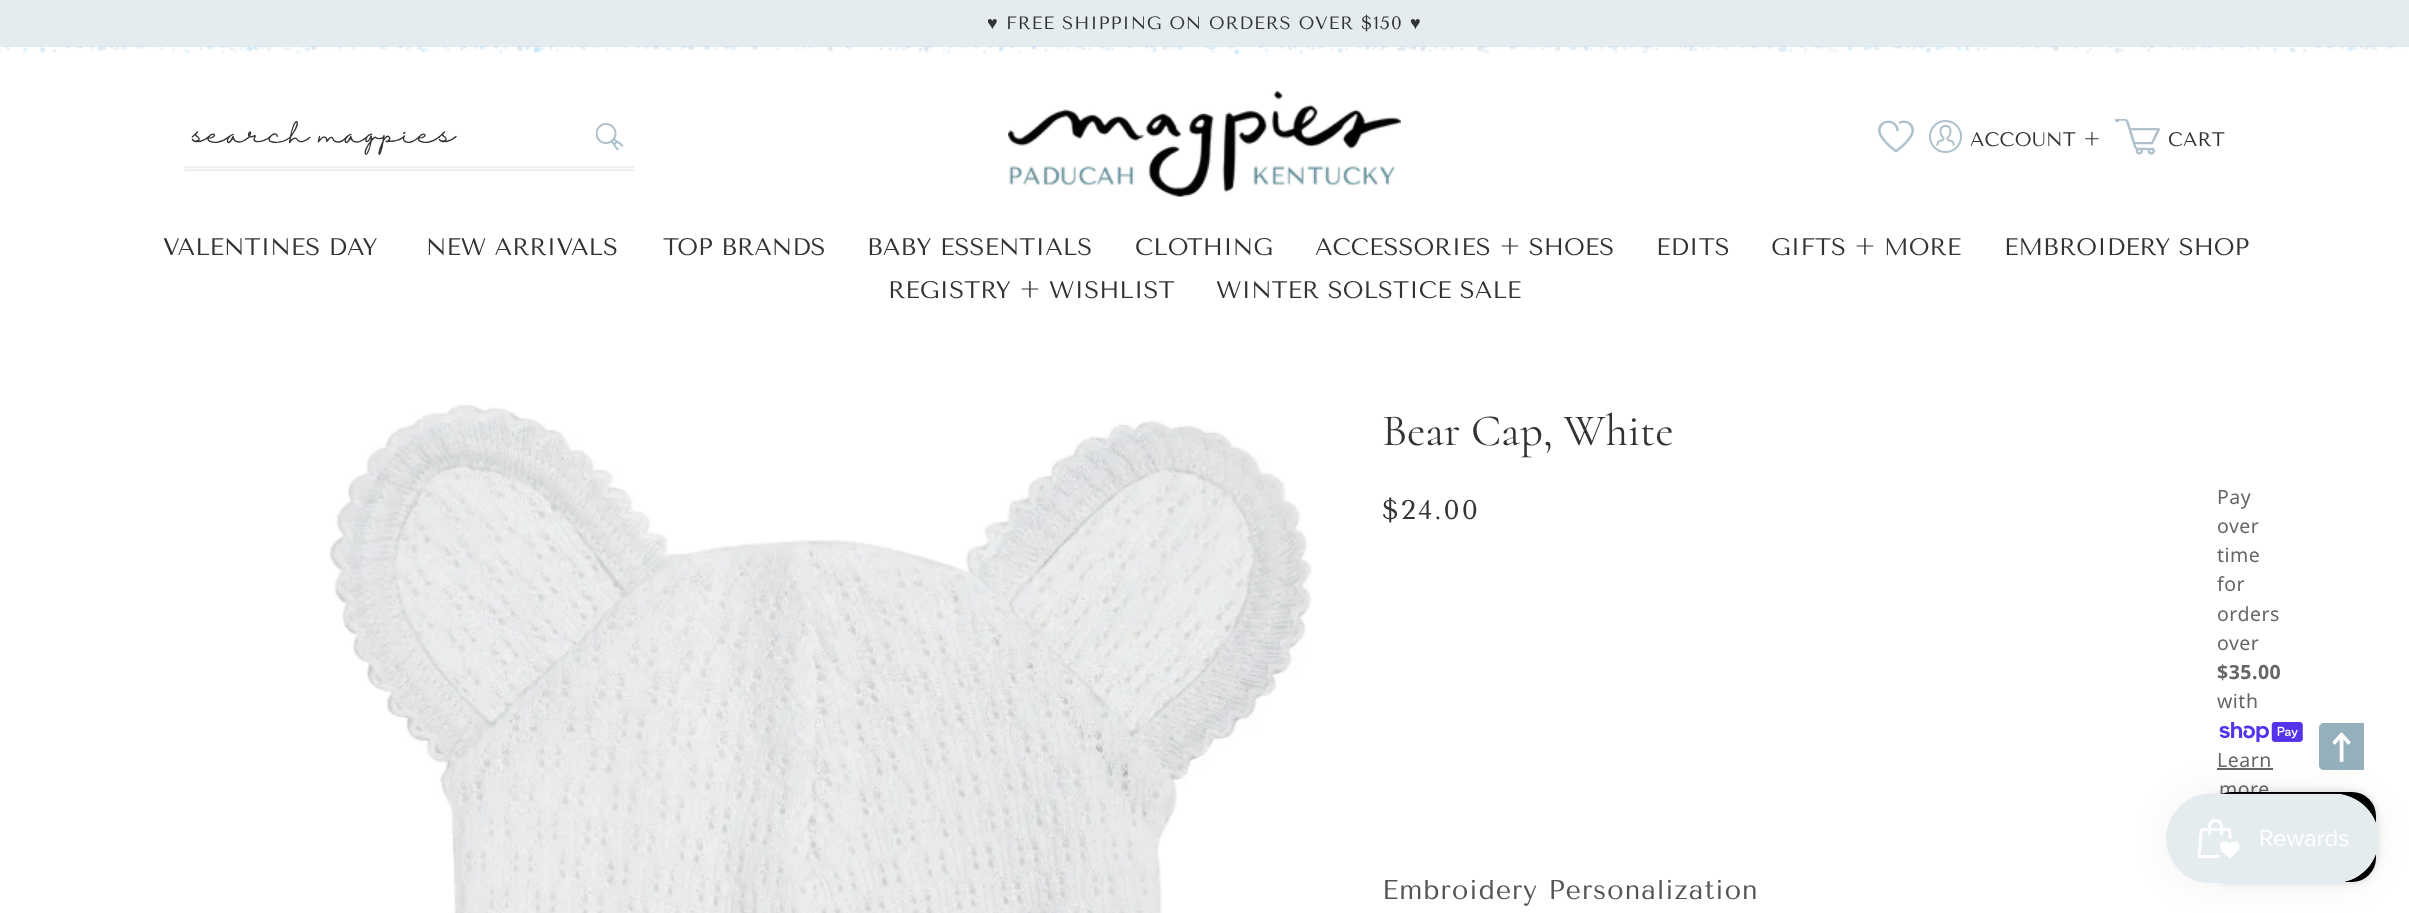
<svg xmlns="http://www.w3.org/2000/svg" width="2409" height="913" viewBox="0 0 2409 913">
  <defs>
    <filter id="blur1" x="-50%" y="-200%" width="200%" height="500%"><feGaussianBlur stdDeviation="4"/></filter>
    <filter id="blur2" x="-50%" y="-200%" width="200%" height="500%"><feGaussianBlur stdDeviation="19"/></filter>
  </defs>
  <rect width="100%" height="100%" fill="#ffffff"/>
  <rect x="0" y="0" width="2409" height="47" fill="#e4ecef"/>
  <text x="987" y="29" font-family="Liberation Sans" font-size="18" letter-spacing="0.9" fill="#333333">♥︎</text>
  <text x="1006" y="29" word-spacing="-0.25" font-family="Tenor Sans" font-size="18" letter-spacing="0.9" fill="#333333">FREE SHIPPING ON ORDERS OVER $150</text>
  <text x="1410" y="29" font-family="Liberation Sans" font-size="18" letter-spacing="0.9" fill="#333333">♥︎</text>
  <image x="0" y="46" width="2407" height="8" href="img1.png"/>
  <text x="192" y="143" font-family="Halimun" font-size="25.5" fill="#333333">search magpies</text>
  <image x="596" y="123" width="27" height="27" href="img2.png"/>
  <image x="184" y="166" width="451" height="5" href="img3.png"/>
  <image x="1008" y="91" width="393" height="106" href="img4.png"/>
  <image x="1878" y="120" width="36" height="33" href="img5.png"/>
  <image x="1929" y="120" width="33" height="33" href="img6.png"/>
  <text x="1970" y="146" font-family="Tenor Sans" font-size="19.5" letter-spacing="0.25" fill="#333333">ACCOUNT +</text>
  <image x="2115" y="119" width="45" height="36" href="img7.png"/>
  <text x="2168" y="146" font-family="Tenor Sans" font-size="19.5" letter-spacing="0.25" fill="#333333">CART</text>
  <text x="163" y="255" font-family="Tenor Sans" font-size="24" fill="#333333">VALENTINES DAY</text>
  <text x="426" y="255" font-family="Tenor Sans" font-size="24" fill="#333333">NEW ARRIVALS</text>
  <text x="663" y="255" font-family="Tenor Sans" font-size="24" fill="#333333">TOP BRANDS</text>
  <text x="867" y="255" font-family="Tenor Sans" font-size="24" fill="#333333">BABY ESSENTIALS</text>
  <text x="1135" y="255" font-family="Tenor Sans" font-size="24" fill="#333333">CLOTHING</text>
  <text x="1315" y="255" font-family="Tenor Sans" font-size="24" fill="#333333">ACCESSORIES + SHOES</text>
  <text x="1656" y="255" font-family="Tenor Sans" font-size="24" fill="#333333">EDITS</text>
  <text x="1771" y="255" font-family="Tenor Sans" font-size="24" fill="#333333">GIFTS + MORE</text>
  <text x="2004" y="255" font-family="Tenor Sans" font-size="24" fill="#333333">EMBROIDERY SHOP</text>
  <text x="888" y="298" font-family="Tenor Sans" font-size="24" fill="#333333">REGISTRY + WISHLIST</text>
  <text x="1216" y="298" font-family="Tenor Sans" font-size="24" fill="#333333">WINTER SOLSTICE SALE</text>
  <image x="329" y="404" width="983" height="509" href="img8.png"/>
  <text x="1382" y="445" font-family="Cormorant" font-size="45" fill="#333333">Bear Cap, White</text>
  <text x="1382" y="519" font-family="Tenor Sans" font-size="27" letter-spacing="2" fill="#333333">$24.00</text>
  <text x="2217" y="504" font-family="Noto Sans" font-size="19.5" letter-spacing="0.5" fill="#666666">Pay</text>
  <text x="2217" y="533" font-family="Noto Sans" font-size="19.5" letter-spacing="0.5" fill="#666666">over</text>
  <text x="2217" y="562" font-family="Noto Sans" font-size="19.5" letter-spacing="0.5" fill="#666666">time</text>
  <text x="2217" y="591" font-family="Noto Sans" font-size="19.5" letter-spacing="0.5" fill="#666666">for</text>
  <text x="2217" y="621" font-family="Noto Sans" font-size="19.5" letter-spacing="0.5" fill="#666666">orders</text>
  <text x="2217" y="650" font-family="Noto Sans" font-size="19.5" letter-spacing="0.5" fill="#666666">over</text>
  <text x="2217" y="679" font-family="Noto Sans" font-size="19.5" font-weight="bold" letter-spacing="0.5" fill="#666666">$35.00</text>
  <text x="2217" y="708" font-family="Noto Sans" font-size="19.5" letter-spacing="0.5" fill="#666666">with</text>
  <image x="2219" y="722" width="84" height="21" href="img9.png"/>
  <text x="2217" y="767" font-family="Noto Sans" font-size="19.5" letter-spacing="0.5" fill="#666666">Learn</text>
  <rect x="2217" y="768" width="56" height="2" fill="#666666"/>
  <text x="2219" y="796" font-family="Noto Sans" font-size="19.5" letter-spacing="0.5" fill="#666666">more</text>
  <text x="1382" y="899" font-family="Tenor Sans" font-size="27" letter-spacing="0.9" fill="#555555">Embroidery Personalization</text>
  <path d="M2324 723H2364V770H2324C2321 770 2319 768 2319 765V728C2319 725 2321 723 2324 723Z" fill="#95afbd"/>
  <image x="2332" y="732" width="19" height="30" href="img10.png"/>
  <rect x="2207" y="792" width="169" height="90" rx="24" fill="#000000" fill-opacity="0.15" filter="url(#blur1)"/>
  <rect x="2207" y="792" width="169" height="90" rx="24" fill="#000000"/>
  <rect x="2166" y="794" width="213" height="90" rx="45" fill="#000000" fill-opacity="0.05" filter="url(#blur2)"/>
  <image x="2166" y="793" width="213" height="90" href="img11.png"/>
</svg>
